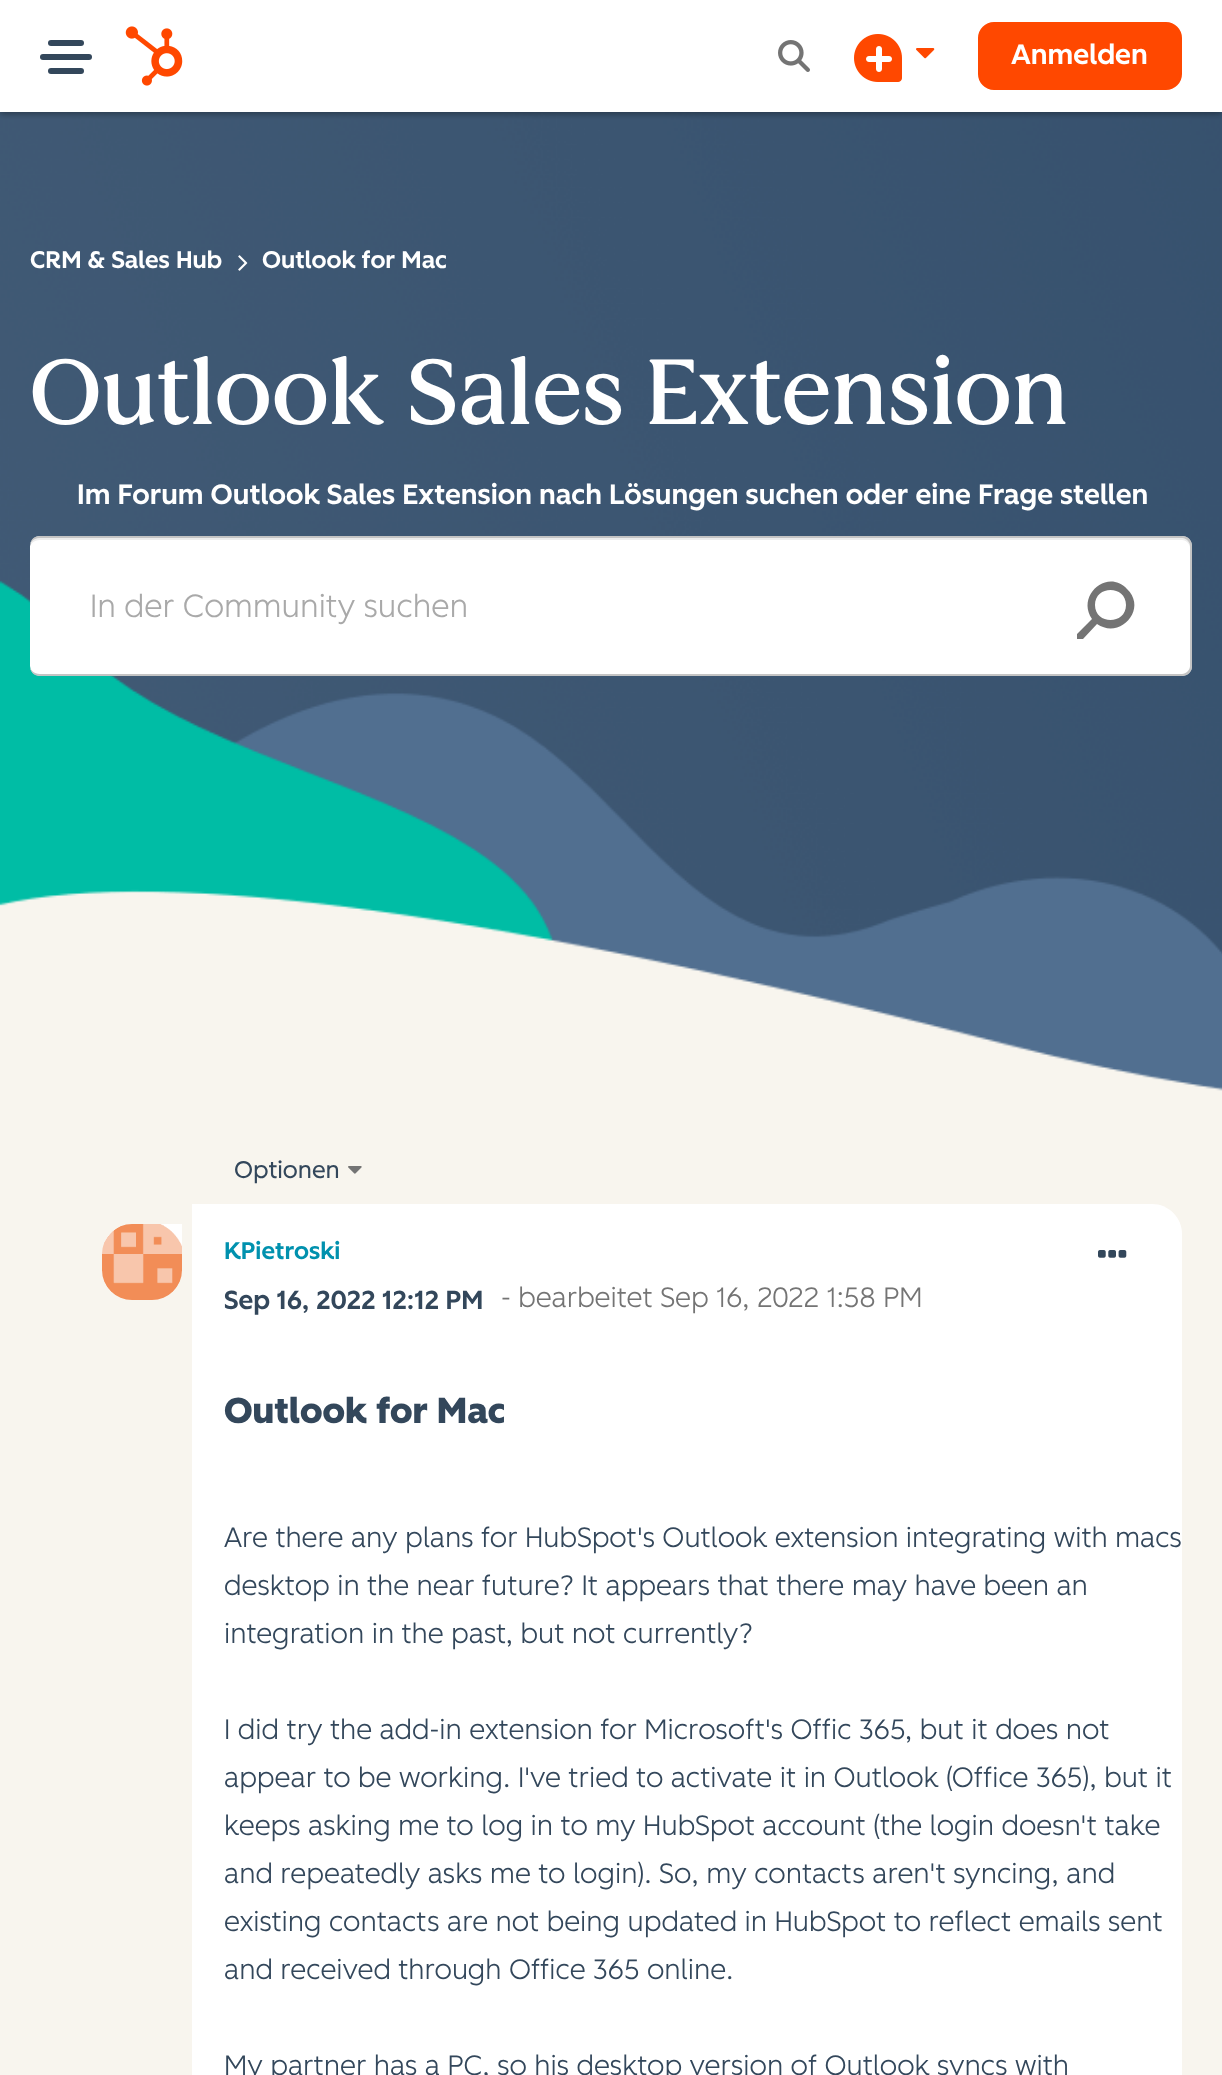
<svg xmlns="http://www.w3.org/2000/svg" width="1222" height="2075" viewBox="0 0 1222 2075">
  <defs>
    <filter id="blur1" x="-50%" y="-200%" width="200%" height="500%"><feGaussianBlur stdDeviation="3"/></filter>
  </defs>
  <rect width="100%" height="100%" fill="#f8f5ee"/>
  <image x="0" y="112" width="1222" height="979" href="img5.png"/>
  <rect x="0" y="2" width="1222" height="112" fill="#000000" fill-opacity="0.24" filter="url(#blur1)"/>
  <rect x="0" y="2" width="1222" height="112" fill="#000000" fill-opacity="0.12" filter="url(#blur1)"/>
  <rect x="0" y="0" width="1222" height="112" fill="#ffffff"/>
  <rect x="48" y="40" width="36" height="6" rx="3" fill="#33475b"/>
  <rect x="40" y="54" width="52" height="6" rx="3" fill="#33475b"/>
  <rect x="48" y="68" width="36" height="6" rx="3" fill="#33475b"/>
  <image x="125" y="26" width="58" height="60" href="img1.png"/>
  <image x="778" y="40" width="32" height="32" href="img2.png"/>
  <image x="854" y="34" width="48" height="48" href="img3.png"/>
  <image x="916" y="48" width="19" height="11" href="img4.png"/>
  <rect x="979" y="23" width="202" height="66" rx="15" fill="#ff4800" stroke="#ff4800" stroke-width="2"/>
  <text x="1011" y="64" font-family="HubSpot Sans" font-size="28" font-weight="500" fill="#ffffff">Anmelden</text>
  <text x="30" y="268" font-family="HubSpot Sans" font-size="24" font-weight="500" fill="#ffffff">CRM &amp; Sales Hub</text>
  <image x="238" y="255" width="10" height="16" href="img6.png"/>
  <text x="262" y="268" font-family="HubSpot Sans" font-size="24" font-weight="500" fill="#ffffff">Outlook for Mac</text>
  <text x="30" y="424" font-family="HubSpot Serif" font-size="92" font-weight="500" fill="#ffffff">Outlook Sales Extension</text>
  <text x="77" y="504" font-family="HubSpot Sans" font-size="28" font-weight="500" fill="#ffffff">Im Forum Outlook Sales Extension nach Lösungen suchen oder eine Frage stellen</text>
  <rect x="30" y="536" width="1162" height="140" rx="10" fill="#ffffff"/>
  <path d="M40 540H1182C1186 540 1190 544 1190 548V546C1190 542 1186 538 1182 538H40C34 538 30 542 30 546V548C30 544 34 540 40 540Z" fill="#000000" fill-opacity="0.07"/>
  <path d="M40 536H1182C1188 536 1192 540 1192 546V666C1192 672 1188 676 1182 676H40C34 676 30 672 30 666V546C30 540 34 536 40 536ZM40 538H1182C1186 538 1190 542 1190 546V666C1190 670 1186 674 1182 674H40C34 674 30 670 30 666V546C30 542 34 538 40 538Z" fill="#c4c4c4" fill-rule="evenodd"/>
  <text x="90" y="617" font-family="HubSpot Sans" font-size="32" font-weight="300" fill="#a9a9a9">In der Community suchen</text>
  <path d="M1083 639H1077V634L1092 619C1076 596 1107 568 1127 589C1148 609 1120 640 1097 624ZM1095 605C1095 585 1126 585 1126 605C1126 625 1095 625 1095 605Z" fill="#747474" fill-rule="evenodd"/>
  <text x="234" y="1178" font-family="HubSpot Sans" font-size="24" fill="#33475b">Optionen</text>
  <image x="348" y="1166" width="14" height="8" href="img7.png"/>
  <image x="102" y="1224" width="80" height="76" href="img8.png"/>
  <path d="M192 1204H1152C1168.5 1204 1182 1217.5 1182 1234V2075C1182 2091.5 1168.5 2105 1152 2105H222C205.5 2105 192 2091.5 192 2075Z" fill="#ffffff"/>
  <text x="224" y="1259" font-family="HubSpot Sans" font-size="24" font-weight="500" fill="#0091ae">KPietroski</text>
  <text x="224" y="1309" font-family="HubSpot Sans" font-size="26" font-weight="500" fill="#33475b">Sep 16, 2022 12:12 PM</text>
  <text x="501" y="1307" font-family="HubSpot Sans" font-size="28" font-weight="300" fill="#747474">- bearbeitet Sep 16, 2022 1:58 PM</text>
  <image x="1098" y="1250" width="29" height="8" href="img9.png"/>
  <text x="224" y="1423" font-family="HubSpot Sans" font-size="36" font-weight="bold" fill="#33475b">Outlook for Mac</text>
  <text x="224" y="1547" font-family="HubSpot Sans" font-size="28" font-weight="300" fill="#33475b">Are there any plans for HubSpot's Outlook extension integrating with macs</text>
  <text x="224" y="1595" font-family="HubSpot Sans" font-size="28" font-weight="300" fill="#33475b">desktop in the near future? It appears that there may have been an</text>
  <text x="224" y="1643" font-family="HubSpot Sans" font-size="28" font-weight="300" fill="#33475b">integration in the past, but not currently?</text>
  <text x="224" y="1739" font-family="HubSpot Sans" font-size="28" font-weight="300" fill="#33475b">I did try the add-in extension for Microsoft's Offic 365, but it does not</text>
  <text x="224" y="1787" font-family="HubSpot Sans" font-size="28" font-weight="300" fill="#33475b">appear to be working. I've tried to activate it in Outlook (Office 365), but it</text>
  <text x="224" y="1835" font-family="HubSpot Sans" font-size="28" font-weight="300" fill="#33475b">keeps asking me to log in to my HubSpot account (the login doesn't take</text>
  <text x="224" y="1883" font-family="HubSpot Sans" font-size="28" font-weight="300" fill="#33475b">and repeatedly asks me to login). So, my contacts aren't syncing, and</text>
  <text x="224" y="1931" font-family="HubSpot Sans" font-size="28" font-weight="300" fill="#33475b">existing contacts are not being updated in HubSpot to reflect emails sent</text>
  <text x="224" y="1979" font-family="HubSpot Sans" font-size="28" font-weight="300" fill="#33475b">and received through Office 365 online.</text>
  <text x="224" y="2075" font-family="HubSpot Sans" font-size="28" font-weight="300" fill="#33475b">My partner has a PC, so his desktop version of Outlook syncs with</text>
</svg>
